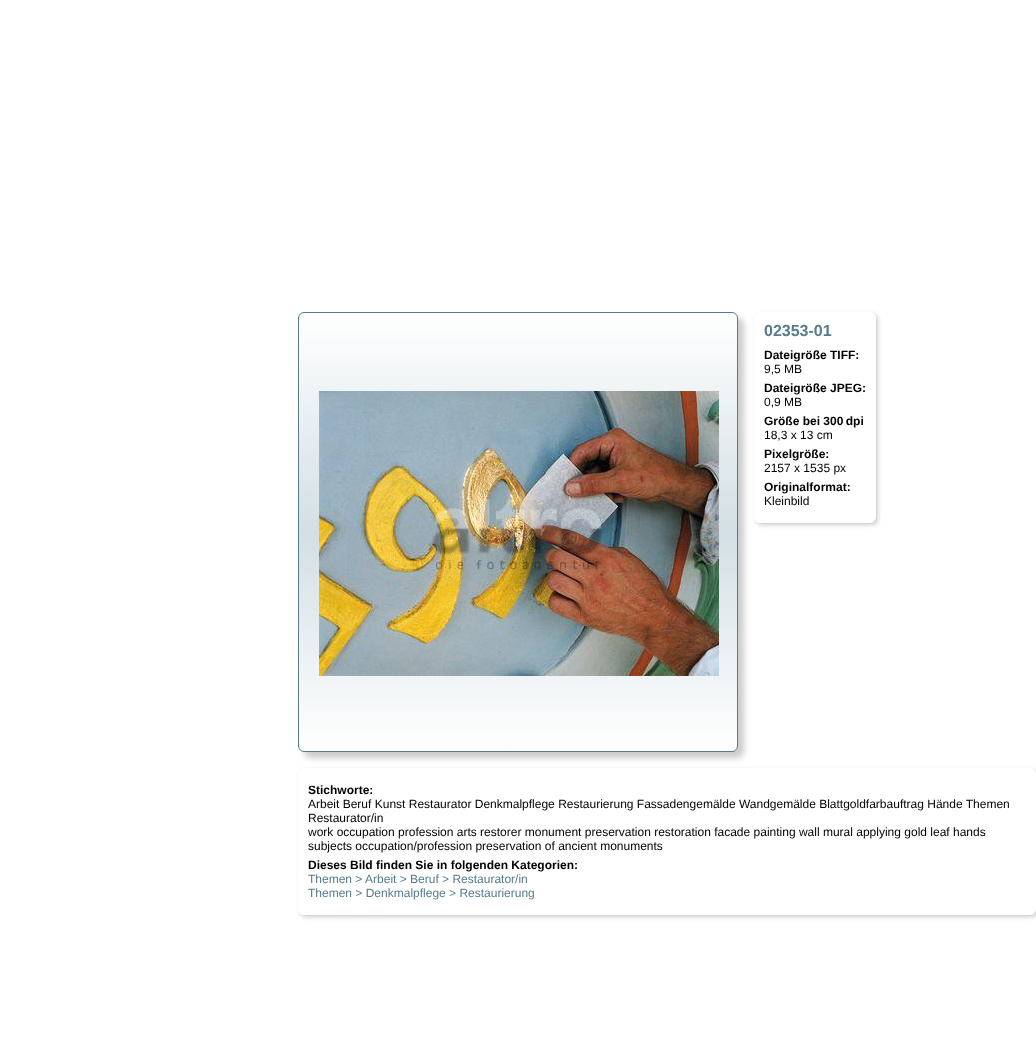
<svg xmlns="http://www.w3.org/2000/svg" width="1036" height="1064" viewBox="0 0 1036 1064">
  <defs>
    <filter id="blur1" x="-50%" y="-200%" width="200%" height="500%"><feGaussianBlur stdDeviation="3"/></filter>
    <clipPath id="clip1"><rect x="298" y="312" width="440" height="440" rx="6"/></clipPath>
    <linearGradient id="g1" gradientUnits="userSpaceOnUse" x1="518" y1="313" x2="518" y2="751"><stop offset="0" stop-color="#ffffff"/><stop offset="0.5" stop-color="#d3dfe4"/><stop offset="1" stop-color="#ffffff"/></linearGradient>
    <filter id="blur2" x="-50%" y="-200%" width="200%" height="500%"><feGaussianBlur stdDeviation="2"/></filter>
  </defs>
  <rect width="100%" height="100%" fill="#ffffff"/>
  <rect x="304" y="318" width="440" height="440" rx="6" fill="#000000" fill-opacity="0.2" filter="url(#blur1)"/>
  <g clip-path="url(#clip1)">
    <rect x="298" y="313" width="440" height="438" fill="url(#g1)"/>
  </g>
  <rect x="298.5" y="312.5" width="439" height="439" rx="5.5" fill="none" stroke="#577b8d"/>
  <image x="319" y="391" width="400" height="285" href="img1.png"/>
  <rect x="756" y="314" width="122" height="211" rx="6" fill="#000000" fill-opacity="0.2" filter="url(#blur2)"/>
  <rect x="754" y="312" width="122" height="211" rx="6" fill="#ffffff"/>
  <text x="764" y="336" font-family="Liberation Sans" font-size="16" font-weight="bold" fill="#577b8d">02353-01</text>
  <text x="764" y="359" font-family="Liberation Sans" font-size="12" font-weight="bold" fill="#000000">Dateigröße TIFF:</text>
  <text x="764" y="373" font-family="Liberation Sans" font-size="12" fill="#000000">9,5 MB</text>
  <text x="764" y="392" font-family="Liberation Sans" font-size="12" font-weight="bold" fill="#000000">Dateigröße JPEG:</text>
  <text x="764" y="406" font-family="Liberation Sans" font-size="12" fill="#000000">0,9 MB</text>
  <text x="764" y="425" font-family="Liberation Sans" font-size="12" font-weight="bold" fill="#000000">Größe bei 300 dpi</text>
  <text x="764" y="439" font-family="Liberation Sans" font-size="12" fill="#000000">18,3 x 13 cm</text>
  <text x="764" y="458" font-family="Liberation Sans" font-size="12" font-weight="bold" fill="#000000">Pixelgröße:</text>
  <text x="764" y="472" font-family="Liberation Sans" font-size="12" fill="#000000">2157 x 1535 px</text>
  <text x="764" y="491" font-family="Liberation Sans" font-size="12" font-weight="bold" fill="#000000">Originalformat:</text>
  <text x="764" y="505" font-family="Liberation Sans" font-size="12" fill="#000000">Kleinbild</text>
  <rect x="300" y="770" width="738" height="147" rx="6" fill="#000000" fill-opacity="0.2" filter="url(#blur2)"/>
  <rect x="298" y="768" width="738" height="147" rx="6" fill="#ffffff"/>
  <text x="308" y="794" font-family="Liberation Sans" font-size="12" font-weight="bold" fill="#000000">Stichworte:</text>
  <text x="308" y="808" font-family="Liberation Sans" font-size="12" fill="#000000">Arbeit Beruf Kunst Restaurator Denkmalpflege Restaurierung Fassadengemälde Wandgemälde Blattgoldfarbauftrag Hände Themen</text>
  <text x="308" y="822" font-family="Liberation Sans" font-size="12" fill="#000000">Restaurator/in</text>
  <text x="308" y="836" font-family="Liberation Sans" font-size="12" fill="#000000">work occupation profession arts restorer monument preservation restoration facade painting wall mural applying gold leaf hands</text>
  <text x="308" y="850" font-family="Liberation Sans" font-size="12" fill="#000000">subjects occupation/profession preservation of ancient monuments</text>
  <text x="308" y="869" font-family="Liberation Sans" font-size="12" font-weight="bold" fill="#000000">Dieses Bild finden Sie in folgenden Kategorien:</text>
  <text x="308" y="883" font-family="Liberation Sans" font-size="12" fill="#577b8d">Themen &gt; Arbeit &gt; Beruf &gt; Restaurator/in</text>
  <text x="308" y="897" font-family="Liberation Sans" font-size="12" fill="#577b8d">Themen &gt; Denkmalpflege &gt; Restaurierung</text>
</svg>
